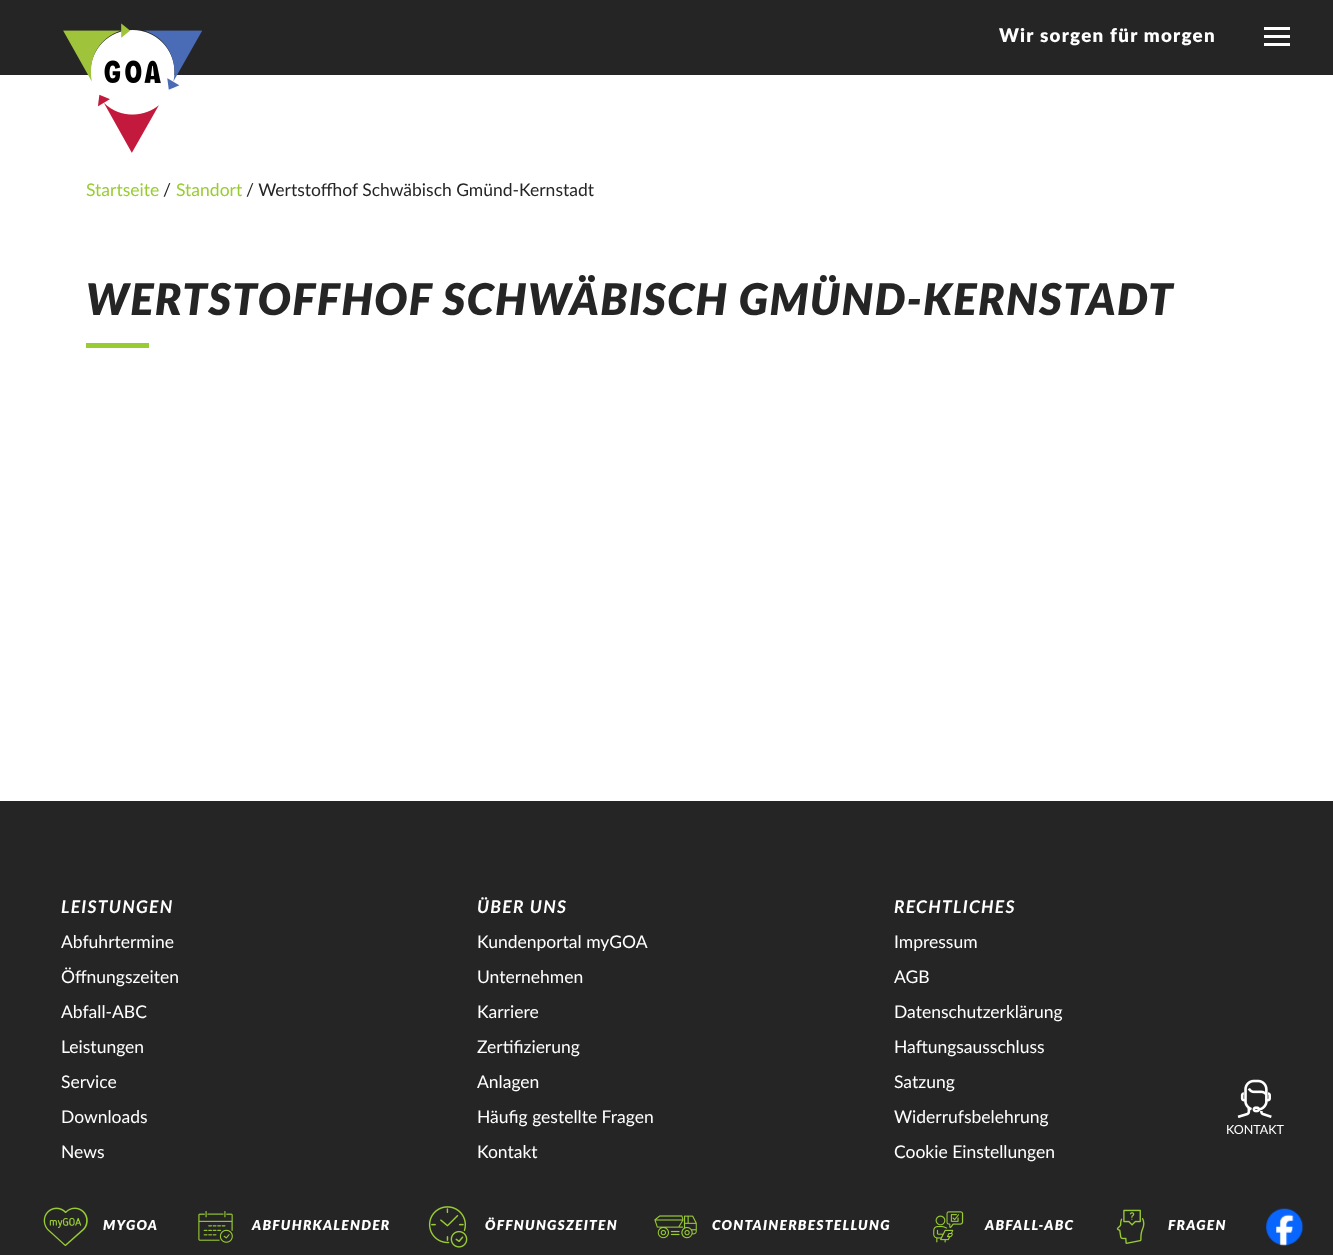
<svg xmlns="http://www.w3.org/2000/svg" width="1333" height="1255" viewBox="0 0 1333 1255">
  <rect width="100%" height="100%" fill="#ffffff"/>
  <rect x="0" y="0" width="1333" height="75" fill="#252525"/>
  <image x="63" y="23" width="140" height="130" href="img1.png"/>
  <text x="999" y="42" font-family="Lato" font-size="18.75" font-weight="900" letter-spacing="1.25" fill="#ffffff">Wir sorgen für morgen</text>
  <rect x="1264" y="27" width="26" height="3" fill="#ffffff"/>
  <rect x="1264" y="35" width="26" height="3" fill="#ffffff"/>
  <rect x="1264" y="43" width="26" height="3" fill="#ffffff"/>
  <text x="86" y="196" font-family="Lato" font-size="17.5" fill="#99cc33">Startseite</text>
  <text x="163" y="196" font-family="Lato" font-size="17.5" fill="#252525">/</text>
  <text x="176" y="196" font-family="Lato" font-size="17.5" fill="#99cc33">Standort</text>
  <text x="246" y="196" font-family="Lato" font-size="17.5" fill="#252525">/ Wertstoffhof Schwäbisch Gmünd-Kernstadt</text>
  <text x="86" y="315" font-family="Lato" font-size="43.75" font-weight="900" font-style="italic" letter-spacing="1.25" fill="#252525">WERTSTOFFHOF SCHWÄBISCH GMÜND-KERNSTADT</text>
  <rect x="86" y="343" width="63" height="5" fill="#99cc33"/>
  <rect x="0" y="801" width="1333" height="454" fill="#252525"/>
  <text x="61" y="913" font-family="Lato" font-size="17.5" font-weight="bold" font-style="italic" letter-spacing="1.25" fill="#ffffff">LEISTUNGEN</text>
  <text x="61" y="948" font-family="Lato" font-size="17.5" fill="#ffffff">Abfuhrtermine</text>
  <text x="61" y="983" font-family="Lato" font-size="17.5" fill="#ffffff">Öffnungszeiten</text>
  <text x="61" y="1018" font-family="Lato" font-size="17.5" fill="#ffffff">Abfall-ABC</text>
  <text x="61" y="1053" font-family="Lato" font-size="17.5" fill="#ffffff">Leistungen</text>
  <text x="61" y="1088" font-family="Lato" font-size="17.5" fill="#ffffff">Service</text>
  <text x="61" y="1123" font-family="Lato" font-size="17.5" fill="#ffffff">Downloads</text>
  <text x="61" y="1158" font-family="Lato" font-size="17.5" fill="#ffffff">News</text>
  <text x="477" y="913" font-family="Lato" font-size="17.5" font-weight="bold" font-style="italic" letter-spacing="1.25" fill="#ffffff">ÜBER UNS</text>
  <text x="477" y="948" font-family="Lato" font-size="17.5" fill="#ffffff">Kundenportal myGOA</text>
  <text x="477" y="983" font-family="Lato" font-size="17.5" fill="#ffffff">Unternehmen</text>
  <text x="477" y="1018" font-family="Lato" font-size="17.5" fill="#ffffff">Karriere</text>
  <text x="477" y="1053" font-family="Lato" font-size="17.5" fill="#ffffff">Zertifizierung</text>
  <text x="477" y="1088" font-family="Lato" font-size="17.5" fill="#ffffff">Anlagen</text>
  <text x="477" y="1123" font-family="Lato" font-size="17.5" fill="#ffffff">Häufig gestellte Fragen</text>
  <text x="477" y="1158" font-family="Lato" font-size="17.5" fill="#ffffff">Kontakt</text>
  <text x="894" y="913" font-family="Lato" font-size="17.5" font-weight="bold" font-style="italic" letter-spacing="1.25" fill="#ffffff">RECHTLICHES</text>
  <text x="894" y="948" font-family="Lato" font-size="17.5" fill="#ffffff">Impressum</text>
  <text x="894" y="983" font-family="Lato" font-size="17.5" fill="#ffffff">AGB</text>
  <text x="894" y="1018" font-family="Lato" font-size="17.5" fill="#ffffff">Datenschutzerklärung</text>
  <text x="894" y="1053" font-family="Lato" font-size="17.5" fill="#ffffff">Haftungsausschluss</text>
  <text x="894" y="1088" font-family="Lato" font-size="17.5" fill="#ffffff">Satzung</text>
  <text x="894" y="1123" font-family="Lato" font-size="17.5" fill="#ffffff">Widerrufsbelehrung</text>
  <text x="894" y="1158" font-family="Lato" font-size="17.5" fill="#ffffff">Cookie Einstellungen</text>
  <image x="1237" y="1079" width="35" height="39" href="img2.png"/>
  <text x="1226" y="1134" font-family="Lato" font-size="12.5" fill="#ffffff">KONTAKT</text>
  <image x="43" y="1207" width="45" height="40" href="img3.png"/>
  <text x="103" y="1230" font-family="Lato" font-size="13.75" font-weight="900" font-style="italic" letter-spacing="1.25" fill="#ffffff">MYGOA</text>
  <image x="198" y="1211" width="35" height="32" href="img4.png"/>
  <text x="252" y="1230" font-family="Lato" font-size="13.75" font-weight="900" font-style="italic" letter-spacing="1.25" fill="#ffffff">ABFUHRKALENDER</text>
  <image x="428" y="1206" width="40" height="42" href="img5.png"/>
  <text x="485" y="1230" font-family="Lato" font-size="13.75" font-weight="900" font-style="italic" letter-spacing="1.25" fill="#ffffff">ÖFFNUNGSZEITEN</text>
  <image x="654" y="1215" width="43" height="24" href="img6.png"/>
  <text x="712" y="1230" font-family="Lato" font-size="13.75" font-weight="900" font-style="italic" letter-spacing="1.25" fill="#ffffff">CONTAINERBESTELLUNG</text>
  <image x="933" y="1211" width="31" height="32" href="img7.png"/>
  <text x="985" y="1230" font-family="Lato" font-size="13.75" font-weight="900" font-style="italic" letter-spacing="1.25" fill="#ffffff">ABFALL-ABC</text>
  <image x="1116" y="1209" width="29" height="35" href="img8.png"/>
  <text x="1168" y="1230" font-family="Lato" font-size="13.75" font-weight="900" font-style="italic" letter-spacing="1.25" fill="#ffffff">FRAGEN</text>
  <image x="1266" y="1208" width="38" height="38" href="img9.png"/>
</svg>
